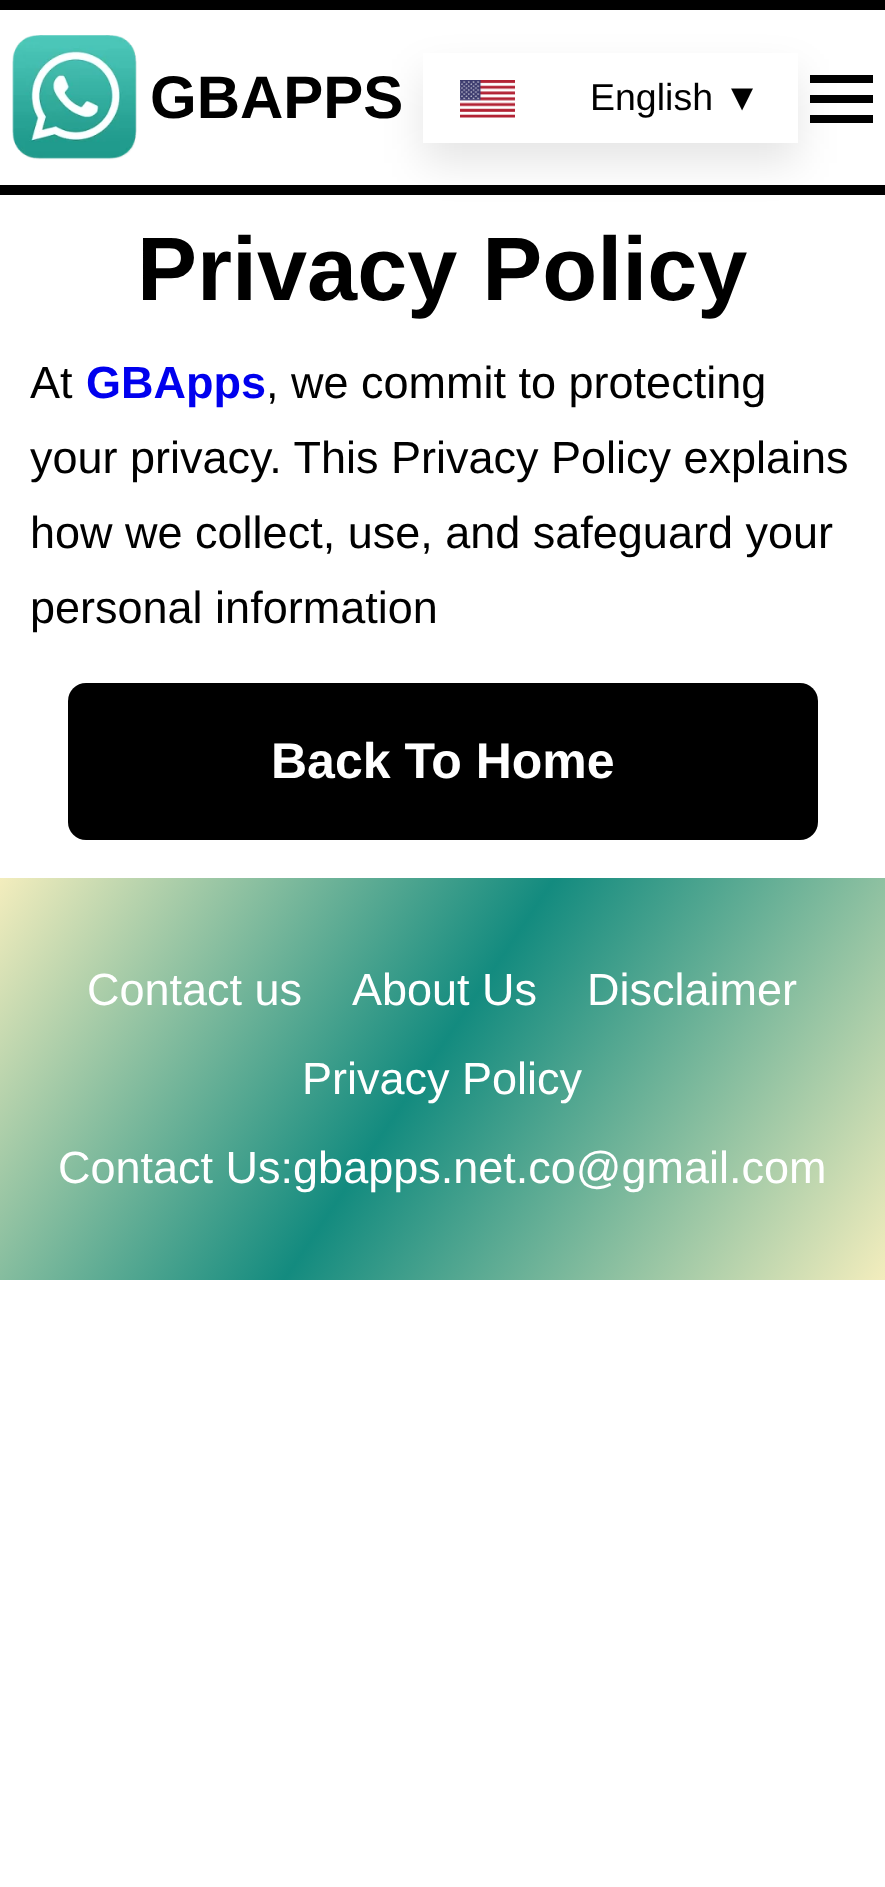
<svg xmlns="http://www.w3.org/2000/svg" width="885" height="1887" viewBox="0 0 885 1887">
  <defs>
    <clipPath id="clip1"><path d="M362 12H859V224H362ZM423 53H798V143H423Z" clip-rule="evenodd"/></clipPath>
    <filter id="blur1" x="-50%" y="-200%" width="200%" height="500%"><feGaussianBlur stdDeviation="20"/></filter>
    <linearGradient id="g1" gradientUnits="userSpaceOnUse" x1="45" y1="811" x2="840" y2="1347"><stop offset="0" stop-color="#f3edbd"/><stop offset="0.48" stop-color="#138b7f"/><stop offset="1" stop-color="#f3edbd"/></linearGradient>
  </defs>
  <rect width="100%" height="100%" fill="#ffffff"/>
  <rect x="0" y="0" width="885" height="10" fill="#000000"/>
  <rect x="0" y="185" width="885" height="10" fill="#000000"/>
  <image x="12" y="35" width="125" height="125" href="img1.png"/>
  <text x="150" y="118" font-family="Liberation Sans" font-size="60" font-weight="bold" fill="#000000">GBAPPS</text>
  <g clip-path="url(#clip1)">
    <rect x="423" y="73" width="375" height="90" fill="#000000" fill-opacity="0.1" filter="url(#blur1)"/>
  </g>
  <image x="460" y="80" width="55" height="38" href="img2.png"/>
  <text x="590" y="110" font-family="Liberation Sans" font-size="37.5" fill="#000000">English ▼</text>
  <rect x="810" y="75" width="63" height="8" fill="#000000"/>
  <rect x="810" y="95" width="63" height="8" fill="#000000"/>
  <rect x="810" y="115" width="63" height="8" fill="#000000"/>
  <text x="137" y="300" font-family="Liberation Sans" font-size="90" font-weight="bold" fill="#000000">Privacy Policy</text>
  <text x="30" y="398" font-family="Liberation Sans" font-size="45" fill="#000000">At</text>
  <text x="86" y="398" font-family="Liberation Sans" font-size="45" font-weight="bold" fill="#0000ee">GBApps</text>
  <text x="266" y="398" font-family="Liberation Sans" font-size="45" fill="#000000">, we commit to protecting</text>
  <text x="30" y="473" font-family="Liberation Sans" font-size="45" fill="#000000">your privacy. This Privacy Policy explains</text>
  <text x="30" y="548" font-family="Liberation Sans" font-size="45" fill="#000000">how we collect, use, and safeguard your</text>
  <text x="30" y="623" font-family="Liberation Sans" font-size="45" fill="#000000">personal information</text>
  <rect x="68" y="683" width="750" height="157" rx="18" fill="#000000"/>
  <text x="271" y="778" font-family="Liberation Sans" font-size="50" font-weight="bold" fill="#ffffff">Back To Home</text>
  <rect x="0" y="878" width="885" height="402" fill="url(#g1)"/>
  <text x="87" y="1005" font-family="Liberation Sans" font-size="45" fill="#ffffff">Contact us</text>
  <text x="352" y="1005" font-family="Liberation Sans" font-size="45" fill="#ffffff">About Us</text>
  <text x="587" y="1005" font-family="Liberation Sans" font-size="45" fill="#ffffff">Disclaimer</text>
  <text x="302" y="1094" font-family="Liberation Sans" font-size="45" fill="#ffffff">Privacy Policy</text>
  <text x="58" y="1183" font-family="Liberation Sans" font-size="45" fill="#ffffff">Contact Us:gbapps.net.co@gmail.com</text>
</svg>
